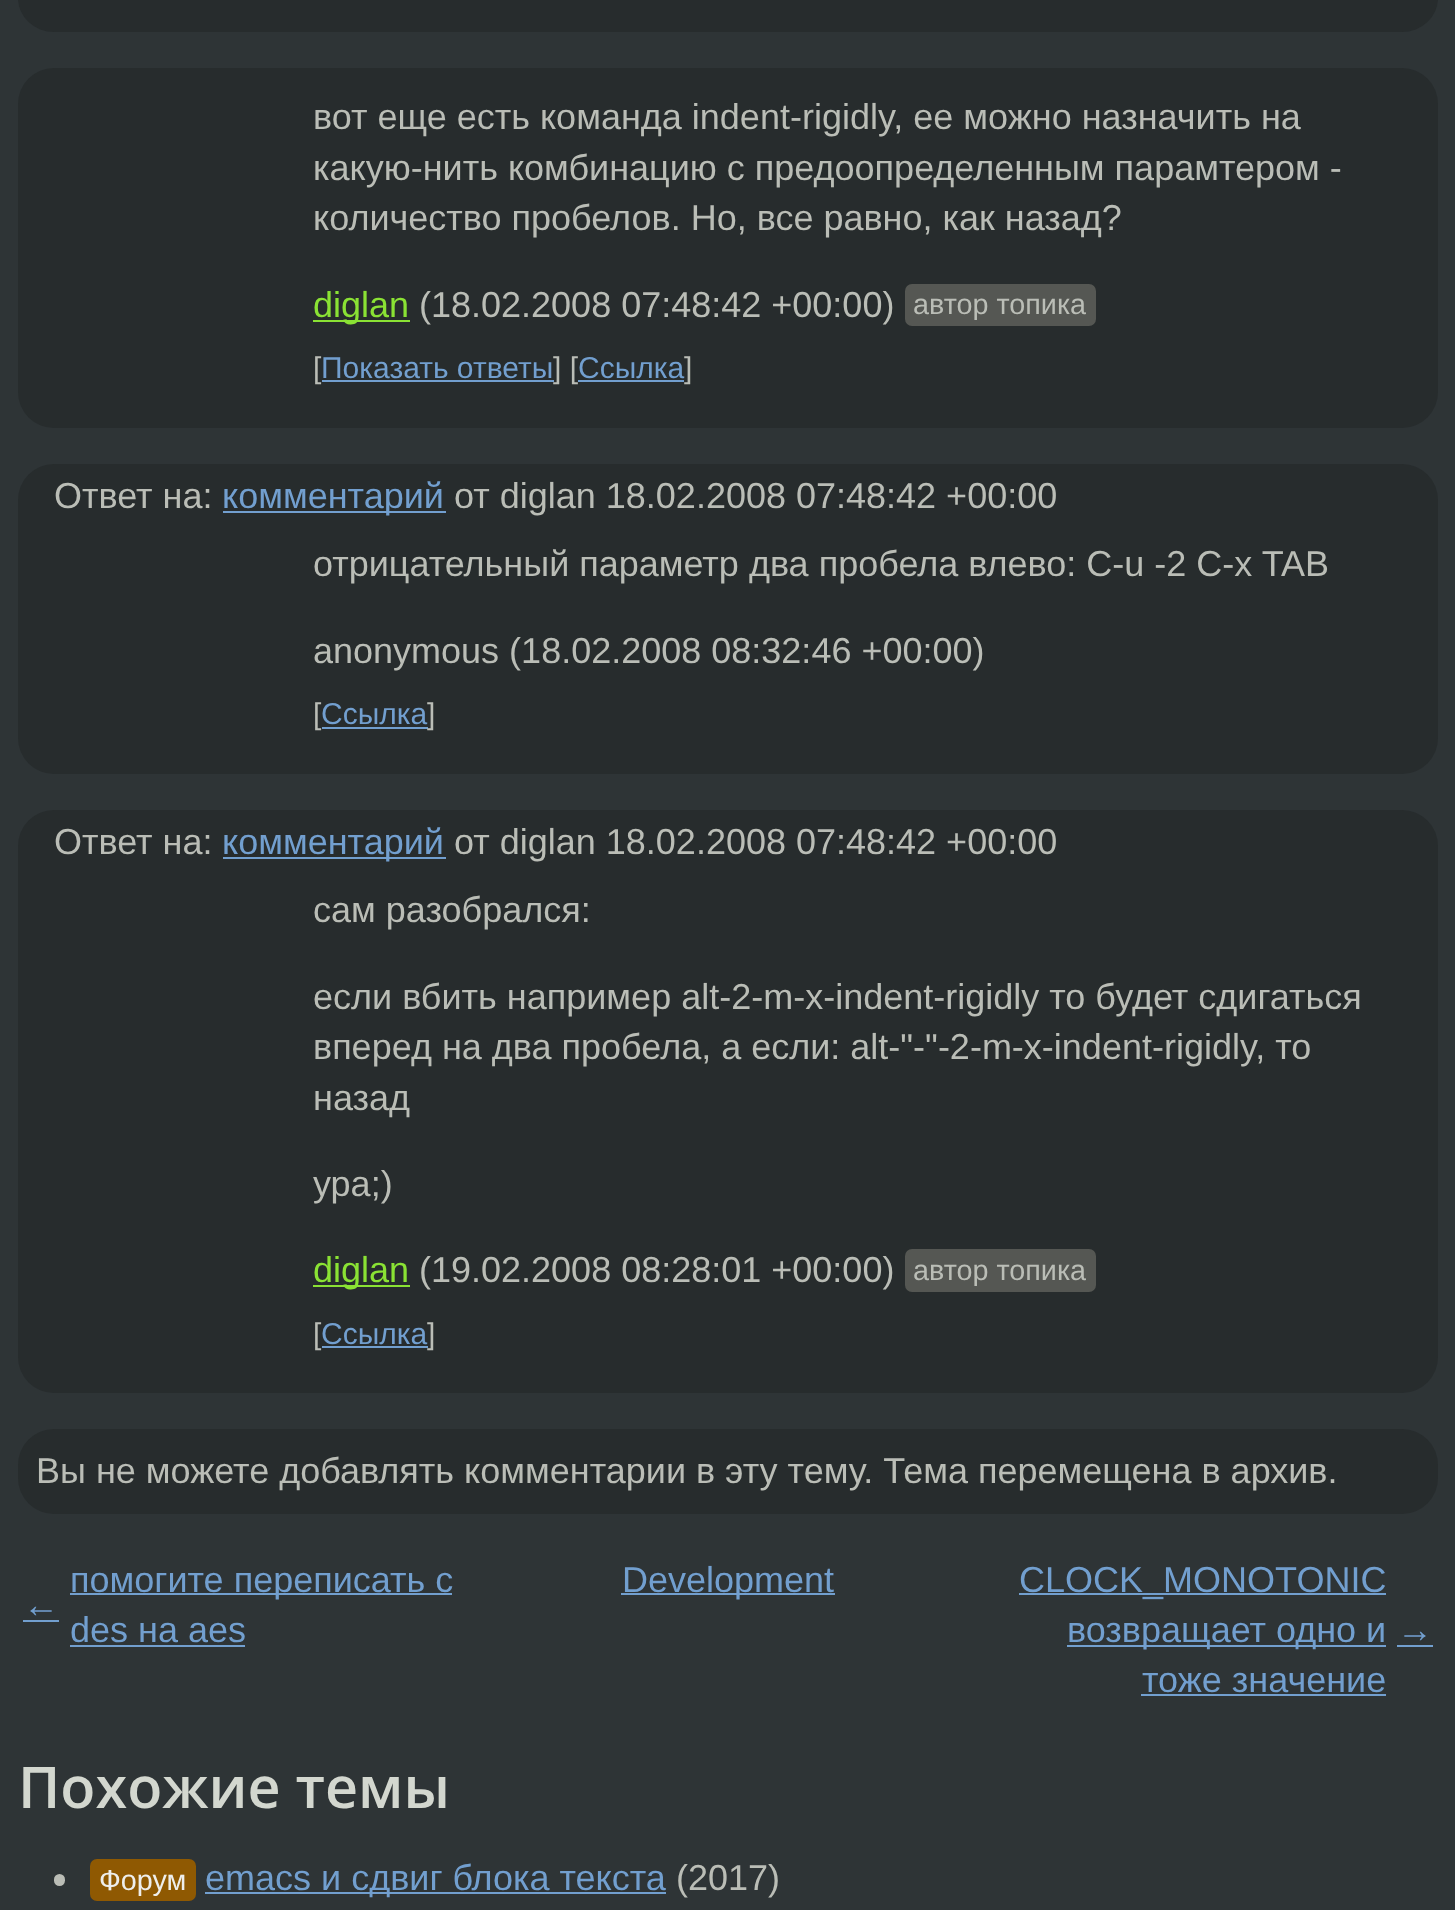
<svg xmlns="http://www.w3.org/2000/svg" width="1455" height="1910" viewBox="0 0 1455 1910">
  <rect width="100%" height="100%" fill="#2e3436"/>
  <rect x="18" y="-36" width="1420" height="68" rx="36" fill="#272c2d"/>
  <rect x="18" y="68" width="1420" height="360" rx="36" fill="#272c2d"/>
  <text x="313" y="129" font-family="Liberation Sans" font-size="36" fill="#babdb6">вот еще есть команда indent-rigidly, ее можно назначить на</text>
  <text x="313" y="180" font-family="Liberation Sans" font-size="36" fill="#babdb6">какую-нить комбинацию с предоопределенным парамтером -</text>
  <text x="313" y="230" font-family="Liberation Sans" font-size="36" fill="#babdb6">количество пробелов. Но, все равно, как назад?</text>
  <rect x="313" y="320" width="97" height="2" fill="#8ae234"/>
  <text x="313" y="317" font-family="Liberation Sans" font-size="36" fill="#8ae234">diglan</text>
  <text x="419" y="317" font-family="Liberation Sans" font-size="36" fill="#babdb6">(18.02.2008 07:48:42 +00:00)</text>
  <rect x="905" y="284" width="191" height="42" rx="7" fill="#555753"/>
  <text x="913" y="314" font-family="Liberation Sans" font-size="28.75" fill="#babdb6">автор топика</text>
  <text x="313" y="378" font-family="Liberation Sans" font-size="30" fill="#babdb6">[</text>
  <text x="321" y="378" font-family="Liberation Sans" font-size="30" fill="#729fcf">Показать ответы</text>
  <rect x="322" y="380" width="232" height="2" fill="#729fcf"/>
  <text x="553" y="378" font-family="Liberation Sans" font-size="30" fill="#babdb6">] [</text>
  <rect x="578" y="380" width="106" height="2" fill="#729fcf"/>
  <text x="578" y="378" font-family="Liberation Sans" font-size="30" fill="#729fcf">Ссылка</text>
  <text x="684" y="378" font-family="Liberation Sans" font-size="30" fill="#babdb6">]</text>
  <rect x="18" y="464" width="1420" height="310" rx="36" fill="#272c2d"/>
  <text x="54" y="508" font-family="Liberation Sans" font-size="36" fill="#babdb6">Ответ на:</text>
  <rect x="223" y="511" width="223" height="2" fill="#729fcf"/>
  <text x="222" y="508" font-family="Liberation Sans" font-size="36" fill="#729fcf">комментарий</text>
  <text x="454" y="508" font-family="Liberation Sans" font-size="36" fill="#babdb6">от diglan 18.02.2008 07:48:42 +00:00</text>
  <text x="313" y="576" font-family="Liberation Sans" font-size="36" fill="#babdb6">отрицательный параметр два пробела влево: C-u -2 C-x TAB</text>
  <text x="313" y="663" font-family="Liberation Sans" font-size="36" fill="#babdb6">anonymous (18.02.2008 08:32:46 +00:00)</text>
  <text x="313" y="724" font-family="Liberation Sans" font-size="30" fill="#babdb6">[</text>
  <text x="321" y="724" font-family="Liberation Sans" font-size="30" fill="#729fcf">Ссылка</text>
  <rect x="322" y="727" width="106" height="2" fill="#729fcf"/>
  <text x="427" y="724" font-family="Liberation Sans" font-size="30" fill="#babdb6">]</text>
  <rect x="18" y="810" width="1420" height="583" rx="36" fill="#272c2d"/>
  <text x="54" y="854" font-family="Liberation Sans" font-size="36" fill="#babdb6">Ответ на:</text>
  <rect x="223" y="857" width="223" height="2" fill="#729fcf"/>
  <text x="222" y="854" font-family="Liberation Sans" font-size="36" fill="#729fcf">комментарий</text>
  <text x="454" y="854" font-family="Liberation Sans" font-size="36" fill="#babdb6">от diglan 18.02.2008 07:48:42 +00:00</text>
  <text x="313" y="922" font-family="Liberation Sans" font-size="36" fill="#babdb6">сам разобрался:</text>
  <text x="313" y="1009" font-family="Liberation Sans" font-size="36" fill="#babdb6">если вбить например alt-2-m-x-indent-rigidly то будет сдигаться</text>
  <text x="313" y="1059" font-family="Liberation Sans" font-size="36" fill="#babdb6">вперед на два пробела, а если: alt-"-"-2-m-x-indent-rigidly, то</text>
  <text x="313" y="1110" font-family="Liberation Sans" font-size="36" fill="#babdb6">назад</text>
  <text x="313" y="1196" font-family="Liberation Sans" font-size="36" fill="#babdb6">ура;)</text>
  <rect x="313" y="1285" width="97" height="2" fill="#8ae234"/>
  <text x="313" y="1282" font-family="Liberation Sans" font-size="36" fill="#8ae234">diglan</text>
  <text x="419" y="1282" font-family="Liberation Sans" font-size="36" fill="#babdb6">(19.02.2008 08:28:01 +00:00)</text>
  <rect x="905" y="1249" width="191" height="43" rx="7" fill="#555753"/>
  <text x="913" y="1280" font-family="Liberation Sans" font-size="28.75" fill="#babdb6">автор топика</text>
  <text x="313" y="1344" font-family="Liberation Sans" font-size="30" fill="#babdb6">[</text>
  <text x="321" y="1344" font-family="Liberation Sans" font-size="30" fill="#729fcf">Ссылка</text>
  <rect x="322" y="1346" width="106" height="2" fill="#729fcf"/>
  <text x="427" y="1344" font-family="Liberation Sans" font-size="30" fill="#babdb6">]</text>
  <rect x="18" y="1429" width="1420" height="85" rx="36" fill="#272c2d"/>
  <text x="36" y="1483" font-family="Liberation Sans" font-size="36" fill="#babdb6">Вы не можете добавлять комментарии в эту тему. Тема перемещена в архив.</text>
  <text x="23" y="1617" font-family="Liberation Sans" font-size="36" fill="#729fcf">←</text>
  <rect x="23" y="1620" width="36" height="2" fill="#729fcf"/>
  <rect x="70" y="1593" width="382" height="2" fill="#729fcf"/>
  <text x="70" y="1592" font-family="Liberation Sans" font-size="36" fill="#729fcf">помогите переписать с</text>
  <text x="70" y="1642" font-family="Liberation Sans" font-size="36" fill="#729fcf">des на aes</text>
  <rect x="70" y="1645" width="175" height="2" fill="#729fcf"/>
  <rect x="621" y="1593" width="214" height="2" fill="#729fcf"/>
  <text x="622" y="1592" font-family="Liberation Sans" font-size="36" fill="#729fcf">Development</text>
  <rect x="1019" y="1593" width="367" height="2" fill="#729fcf"/>
  <text x="1019" y="1592" font-family="Liberation Sans" font-size="36" fill="#729fcf">CLOCK_MONOTONIC</text>
  <rect x="1067" y="1645" width="319" height="2" fill="#729fcf"/>
  <text x="1067" y="1642" font-family="Liberation Sans" font-size="36" fill="#729fcf">возвращает одно и</text>
  <text x="1142" y="1692" font-family="Liberation Sans" font-size="36" fill="#729fcf">тоже значение</text>
  <rect x="1141" y="1694" width="245" height="2" fill="#729fcf"/>
  <text x="1397" y="1642" font-family="Liberation Sans" font-size="36" fill="#729fcf">→</text>
  <rect x="1397" y="1645" width="36" height="2" fill="#729fcf"/>
  <text x="18" y="1808" font-family="Open Sans" font-size="57.5" font-weight="600" fill="#d3d7cf">Похожие темы</text>
  <rect x="54" y="1874" width="11" height="12" rx="5.5" fill="#babdb6"/>
  <rect x="90" y="1859" width="106" height="42" rx="7" fill="#8f5902"/>
  <text x="99" y="1890" font-family="Liberation Sans" font-size="28.75" fill="#eeeeec">Форум</text>
  <rect x="205" y="1892" width="461" height="2" fill="#729fcf"/>
  <text x="205" y="1890" font-family="Liberation Sans" font-size="36" fill="#729fcf">emacs и сдвиг блока текста</text>
  <text x="676" y="1890" font-family="Liberation Sans" font-size="36" fill="#babdb6">(2017)</text>
</svg>
